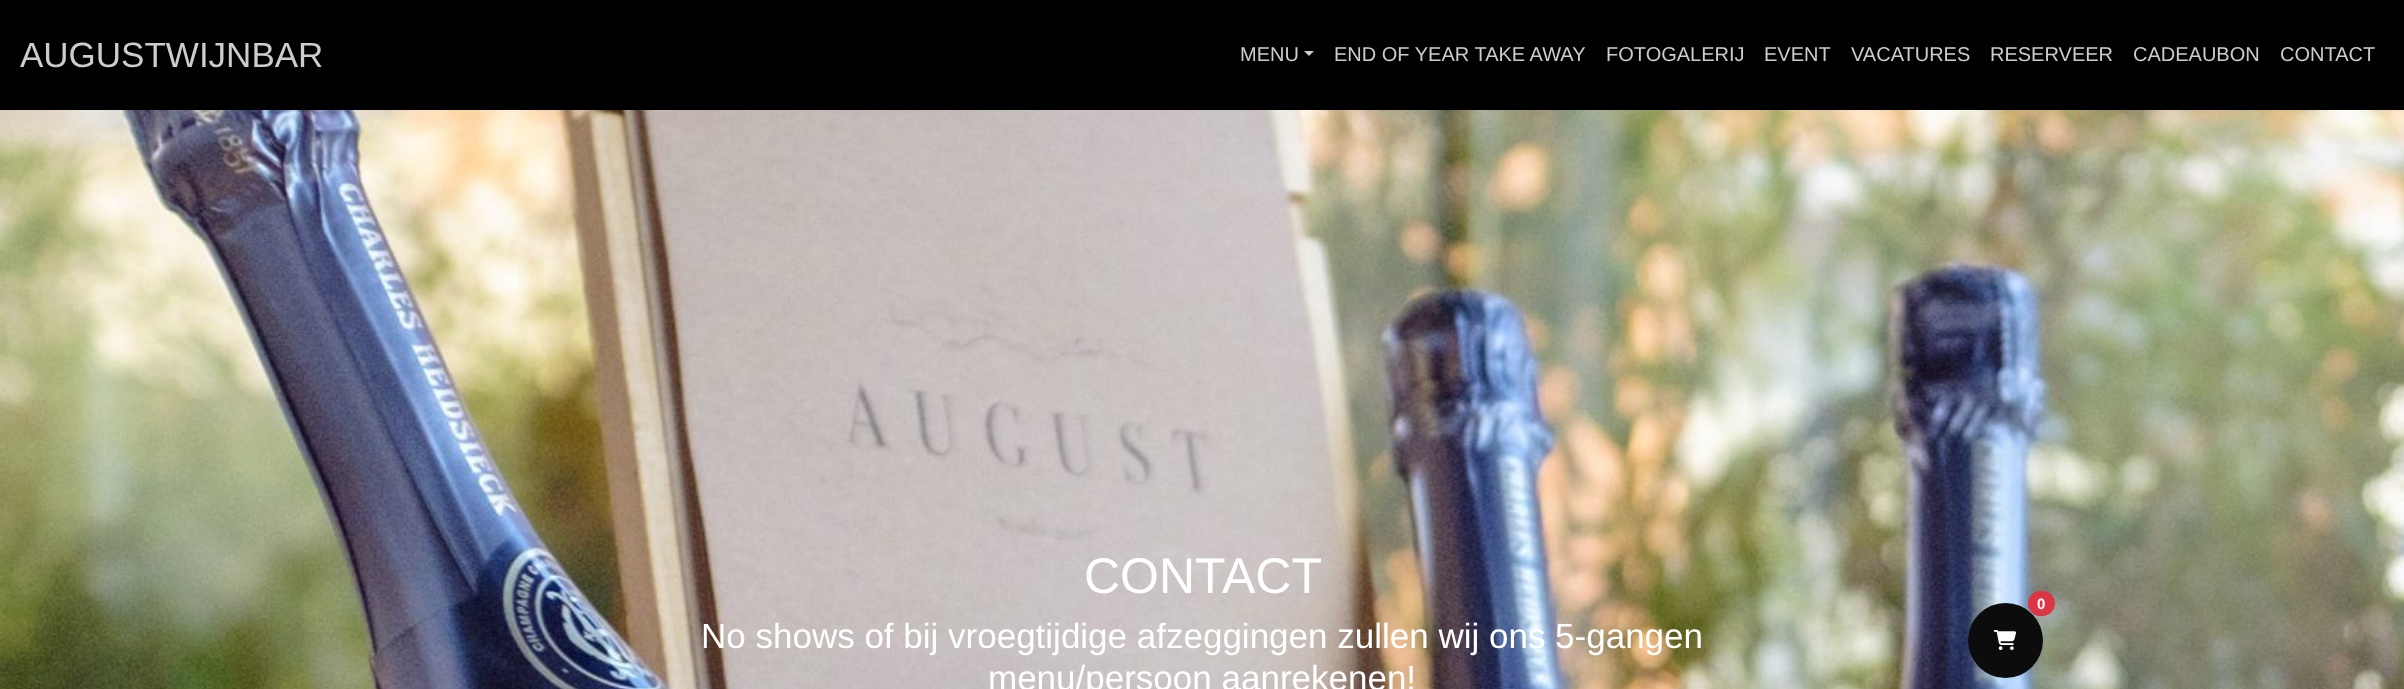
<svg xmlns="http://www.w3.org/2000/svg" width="2404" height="689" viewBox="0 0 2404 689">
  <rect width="100%" height="100%" fill="#000000"/>
  <text x="20" y="67" font-family="Liberation Sans" font-size="35" fill="#cccccc">AUGUSTWIJNBAR</text>
  <text x="1240" y="61" font-family="Liberation Sans" font-size="20" fill="#cccccc">MENU</text>
  <path d="M1304 51H1314L1309 56Z" fill="#cccccc"/>
  <text x="1334" y="61" font-family="Liberation Sans" font-size="20" fill="#cccccc">END OF YEAR TAKE AWAY</text>
  <text x="1606" y="61" font-family="Liberation Sans" font-size="20" fill="#cccccc">FOTOGALERIJ</text>
  <text x="1764" y="61" font-family="Liberation Sans" font-size="20" fill="#cccccc">EVENT</text>
  <text x="1851" y="61" font-family="Liberation Sans" font-size="20" fill="#cccccc">VACATURES</text>
  <text x="1990" y="61" font-family="Liberation Sans" font-size="20" fill="#cccccc">RESERVEER</text>
  <text x="2133" y="61" font-family="Liberation Sans" font-size="20" fill="#cccccc">CADEAUBON</text>
  <text x="2280" y="61" font-family="Liberation Sans" font-size="20" fill="#cccccc">CONTACT</text>
  <image x="0" y="110" width="2404" height="579" href="img1.png"/>
  <text x="1084" y="593" font-family="Liberation Sans" font-size="50" fill="#ffffff">CONTACT</text>
  <text x="701" y="648" font-family="Liberation Sans" font-size="35" fill="#ffffff">No shows of bij vroegtijdige afzeggingen zullen wij ons 5-gangen</text>
  <text x="988" y="690" font-family="Liberation Sans" font-size="35" fill="#ffffff">menu/persoon aanrekenen!</text>
  <circle cx="2005.5" cy="640.5" r="37.5" fill="#0c0c0c"/>
  <rect x="2028" y="591" width="27" height="25" rx="12.5" fill="#dc3545"/>
  <text x="2037" y="609" font-family="Liberation Sans" font-size="15" font-weight="bold" fill="#ffffff">0</text>
  <image x="1993" y="630" width="23" height="20" href="img2.png"/>
</svg>
